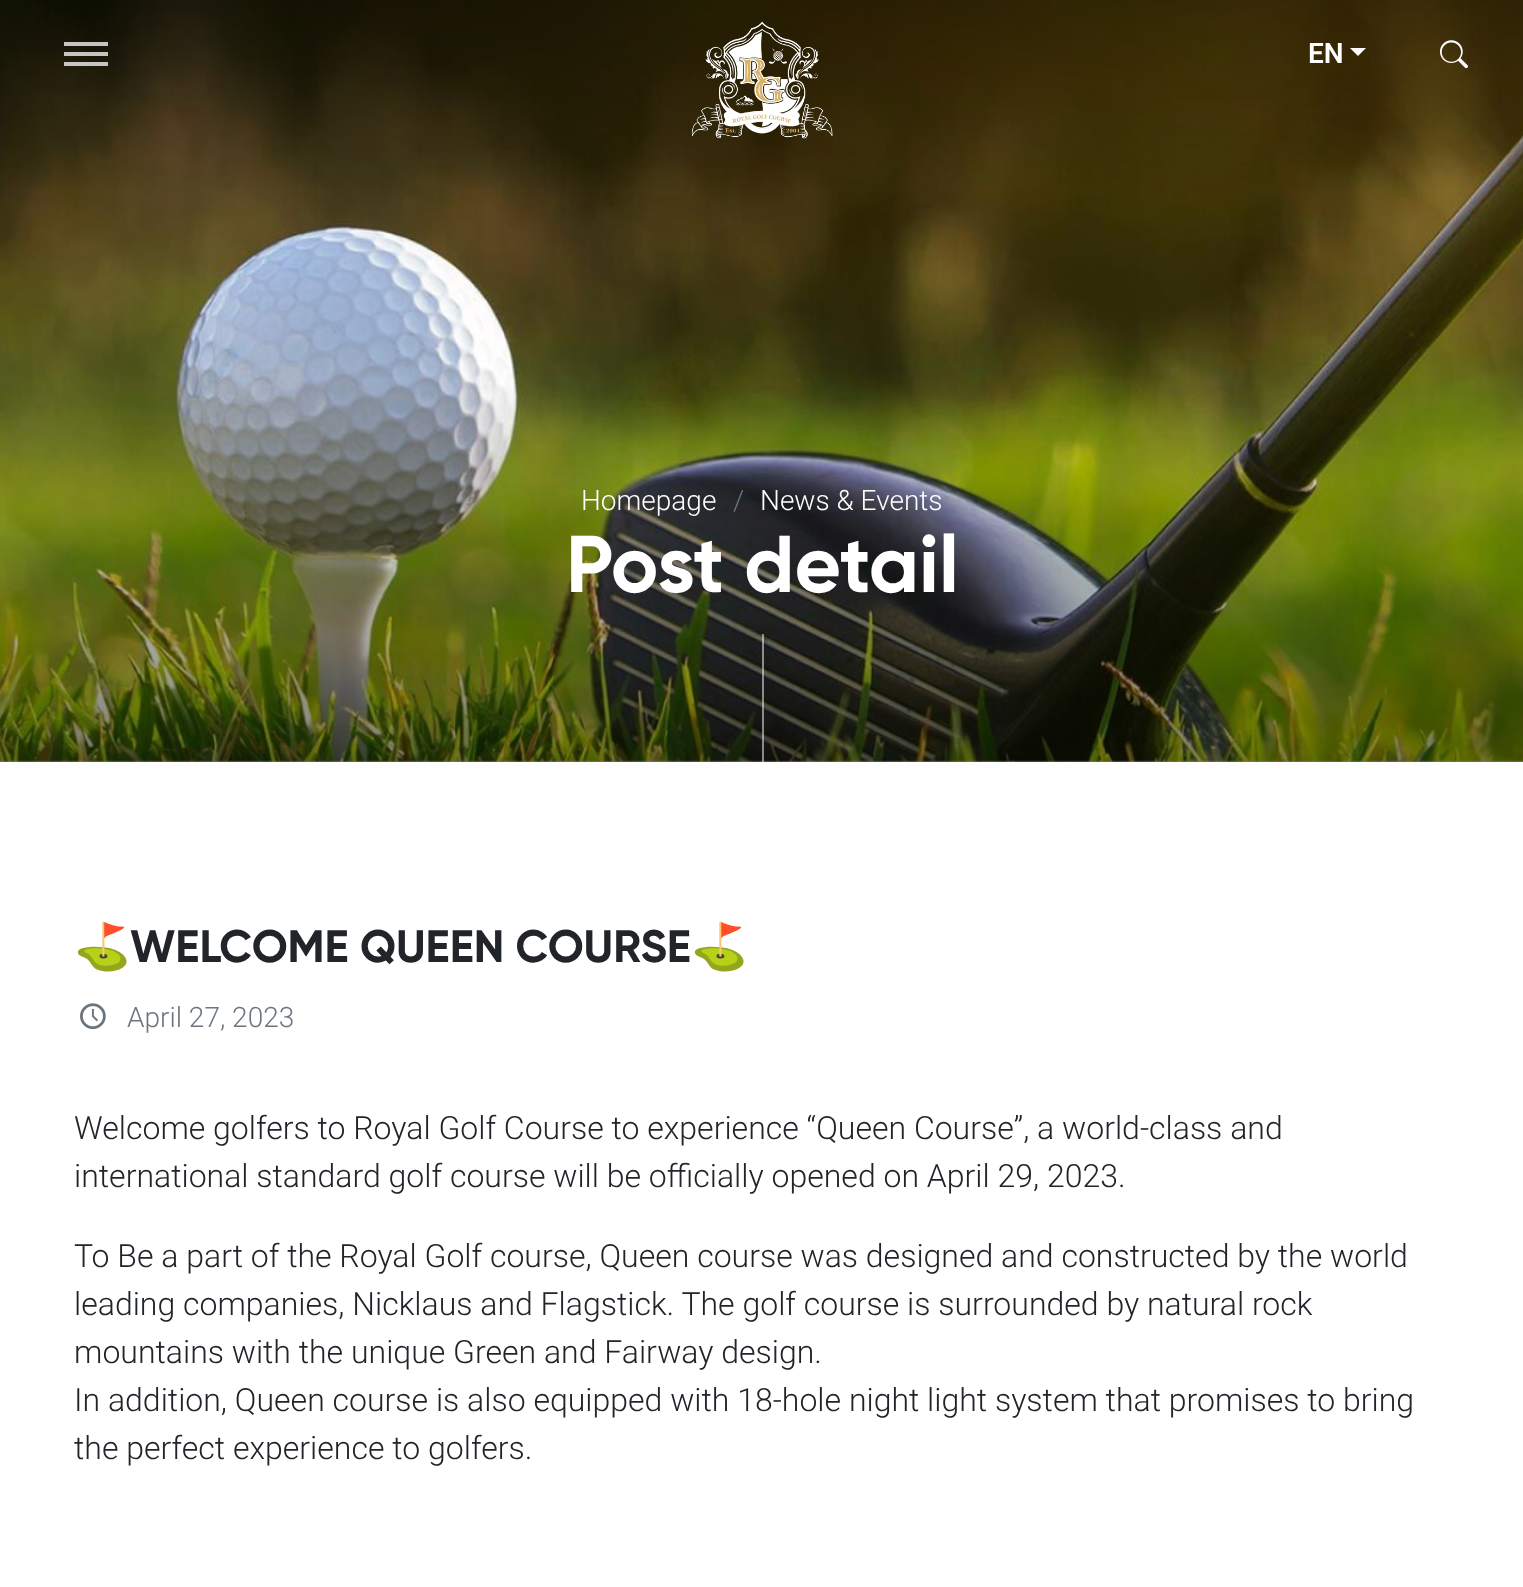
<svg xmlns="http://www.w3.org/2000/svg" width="1523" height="1587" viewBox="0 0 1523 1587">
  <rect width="100%" height="100%" fill="#ffffff"/>
  <image x="0" y="0" width="1523" height="762" href="img3.png"/>
  <path d="M64 44H108M64 54H108M64 64H108" fill="none" stroke="#ffffff" stroke-opacity="0.75" stroke-width="4"/>
  <image x="692" y="21" width="141" height="118" href="img1.png"/>
  <text x="1308" y="63" font-family="Roboto" font-size="28" font-weight="600" fill="#ffffff">EN</text>
  <path d="M1350 48H1366L1358 56Z" fill="#ffffff"/>
  <image x="1440" y="40" width="28" height="29" href="img2.png"/>
  <text x="581" y="510" font-family="Roboto" font-size="28" font-weight="300" fill="#ffffff">Homepage</text>
  <text x="733" y="510" font-family="Roboto" font-size="28" font-weight="300" fill="#6c757d">/</text>
  <text x="760" y="510" font-family="Roboto" font-size="28" font-weight="300" fill="#ffffff">News &amp; Events</text>
  <text x="566" y="592" font-family="Gilroy" font-size="80.25" font-weight="bold" fill="#ffffff">Post detail</text>
  <rect x="762" y="634" width="2" height="128" fill="#ffffff" fill-opacity="0.5"/>
  <text x="74" y="962" font-family="Noto Color Emoji" font-size="45.4" font-weight="bold" fill="#212529">⛳</text>
  <text x="130" y="962" font-family="Gilroy" font-size="45.4" font-weight="bold" fill="#212529">WELCOME QUEEN COURSE</text>
  <text x="691" y="962" font-family="Noto Color Emoji" font-size="45.4" font-weight="bold" fill="#212529">⛳</text>
  <image x="80" y="1003" width="26" height="27" href="img4.png"/>
  <text x="127" y="1027" font-family="Roboto" font-size="28" font-weight="300" fill="#6c757d">April 27, 2023</text>
  <text x="74" y="1139" font-family="Roboto" font-size="32" font-weight="300" fill="#212529">Welcome golfers to Royal Golf Course to experience “Queen Course”, a world-class and</text>
  <text x="74" y="1187" font-family="Roboto" font-size="32" font-weight="300" fill="#212529">international standard golf course will be officially opened on April 29, 2023.</text>
  <text x="74" y="1267" font-family="Roboto" font-size="32" font-weight="300" fill="#212529">To Be a part of the Royal Golf course, Queen course was designed and constructed by the world</text>
  <text x="74" y="1315" font-family="Roboto" font-size="32" font-weight="300" fill="#212529">leading companies, Nicklaus and Flagstick. The golf course is surrounded by natural rock</text>
  <text x="74" y="1363" font-family="Roboto" font-size="32" font-weight="300" fill="#212529">mountains with the unique Green and Fairway design.</text>
  <text x="74" y="1411" font-family="Roboto" font-size="32" font-weight="300" fill="#212529">In addition, Queen course is also equipped with 18-hole night light system that promises to bring</text>
  <text x="74" y="1459" font-family="Roboto" font-size="32" font-weight="300" fill="#212529">the perfect experience to golfers.</text>
</svg>
